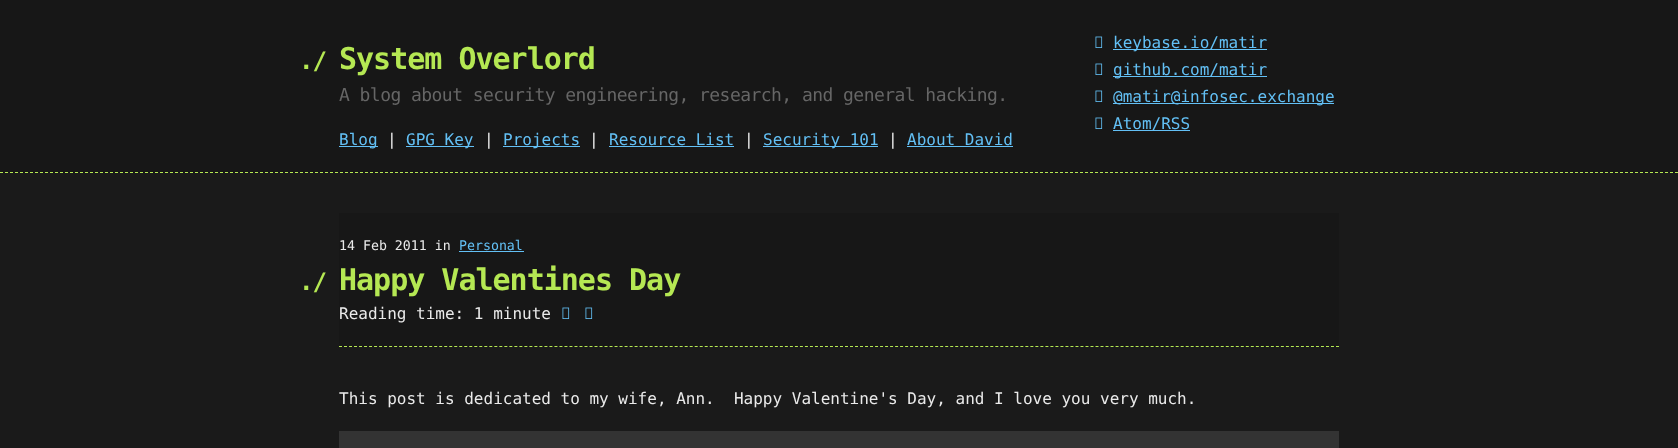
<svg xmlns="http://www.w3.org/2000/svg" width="1678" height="448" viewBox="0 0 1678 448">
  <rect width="100%" height="100%" fill="#1a1a1a"/>
  <rect x="0" y="0" width="1678" height="173" fill="#171717"/>
  <path d="M0 172.5H1678" fill="none" stroke="#b5e853" stroke-dasharray="3 2"/>
  <text x="299" y="69" font-family="DejaVu Sans Mono" font-size="24" font-weight="bold" letter-spacing="-1" fill="#b5e853">./</text>
  <text x="339" y="69" font-family="DejaVu Sans Mono" font-size="30" font-weight="bold" letter-spacing="-1" fill="#b5e853">System Overlord</text>
  <text x="339" y="101" font-family="DejaVu Sans Mono" font-size="18" letter-spacing="-0.55" fill="#666666">A blog about security engineering, research, and general hacking.</text>
  <rect x="339" y="146" width="39" height="1" fill="#63c0f5"/>
  <text x="339" y="145" font-family="DejaVu Sans Mono" font-size="16" fill="#63c0f5">Blog</text>
  <text x="387" y="145" font-family="DejaVu Sans Mono" font-size="16" fill="#eaeaea">|</text>
  <rect x="406" y="146" width="68" height="1" fill="#63c0f5"/>
  <text x="406" y="145" font-family="DejaVu Sans Mono" font-size="16" fill="#63c0f5">GPG Key</text>
  <text x="484" y="145" font-family="DejaVu Sans Mono" font-size="16" fill="#eaeaea">|</text>
  <rect x="503" y="146" width="77" height="1" fill="#63c0f5"/>
  <text x="503" y="145" font-family="DejaVu Sans Mono" font-size="16" fill="#63c0f5">Projects</text>
  <text x="589" y="145" font-family="DejaVu Sans Mono" font-size="16" fill="#eaeaea">|</text>
  <text x="609" y="145" font-family="DejaVu Sans Mono" font-size="16" fill="#63c0f5">Resource List</text>
  <rect x="609" y="146" width="125" height="1" fill="#63c0f5"/>
  <text x="744" y="145" font-family="DejaVu Sans Mono" font-size="16" fill="#eaeaea">|</text>
  <rect x="763" y="146" width="115" height="1" fill="#63c0f5"/>
  <text x="763" y="145" font-family="DejaVu Sans Mono" font-size="16" fill="#63c0f5">Security 101</text>
  <text x="888" y="145" font-family="DejaVu Sans Mono" font-size="16" fill="#eaeaea">|</text>
  <text x="907" y="145" font-family="DejaVu Sans Mono" font-size="16" fill="#63c0f5">About David</text>
  <rect x="907" y="146" width="106" height="1" fill="#63c0f5"/>
  <image x="1095" y="36" width="8" height="12" href="img1.png"/>
  <rect x="1113" y="49" width="154" height="1" fill="#63c0f5"/>
  <text x="1113" y="48" font-family="DejaVu Sans Mono" font-size="16" fill="#63c0f5">keybase.io/matir</text>
  <image x="1095" y="63" width="8" height="12" href="img1.png"/>
  <rect x="1113" y="76" width="154" height="1" fill="#63c0f5"/>
  <text x="1113" y="75" font-family="DejaVu Sans Mono" font-size="16" fill="#63c0f5">github.com/matir</text>
  <image x="1095" y="90" width="8" height="12" href="img1.png"/>
  <rect x="1113" y="103" width="221" height="1" fill="#63c0f5"/>
  <text x="1113" y="102" font-family="DejaVu Sans Mono" font-size="16" fill="#63c0f5">@matir@infosec.exchange</text>
  <image x="1095" y="117" width="8" height="12" href="img1.png"/>
  <rect x="1113" y="130" width="77" height="1" fill="#63c0f5"/>
  <text x="1113" y="129" font-family="DejaVu Sans Mono" font-size="16" fill="#63c0f5">Atom/RSS</text>
  <rect x="339" y="213" width="1000" height="134" fill="#171717"/>
  <path d="M339 346.5H1339" fill="none" stroke="#b5e853" stroke-dasharray="3 2.01"/>
  <text x="339" y="250" font-family="DejaVu Sans Mono" font-size="13.25" fill="#eaeaea">14 Feb 2011 in</text>
  <text x="459" y="250" font-family="DejaVu Sans Mono" font-size="13.25" fill="#63c0f5">Personal</text>
  <rect x="459" y="251" width="65" height="1" fill="#63c0f5"/>
  <text x="299" y="290" font-family="DejaVu Sans Mono" font-size="24" font-weight="bold" letter-spacing="-1" fill="#b5e853">./</text>
  <text x="339" y="290" font-family="DejaVu Sans Mono" font-size="30" font-weight="bold" letter-spacing="-1" fill="#b5e853">Happy Valentines Day</text>
  <text x="339" y="319" font-family="DejaVu Sans Mono" font-size="16" fill="#eaeaea">Reading time: 1 minute</text>
  <image x="562" y="307" width="8" height="12" href="img1.png"/>
  <image x="585" y="307" width="8" height="12" href="img1.png"/>
  <text x="339" y="404" font-family="DejaVu Sans Mono" font-size="16" fill="#eaeaea" xml:space="preserve">This post is dedicated to my wife, Ann.  Happy Valentine's Day, and I love you very much.</text>
  <rect x="339" y="431" width="1000" height="17" fill="#333333"/>
</svg>
